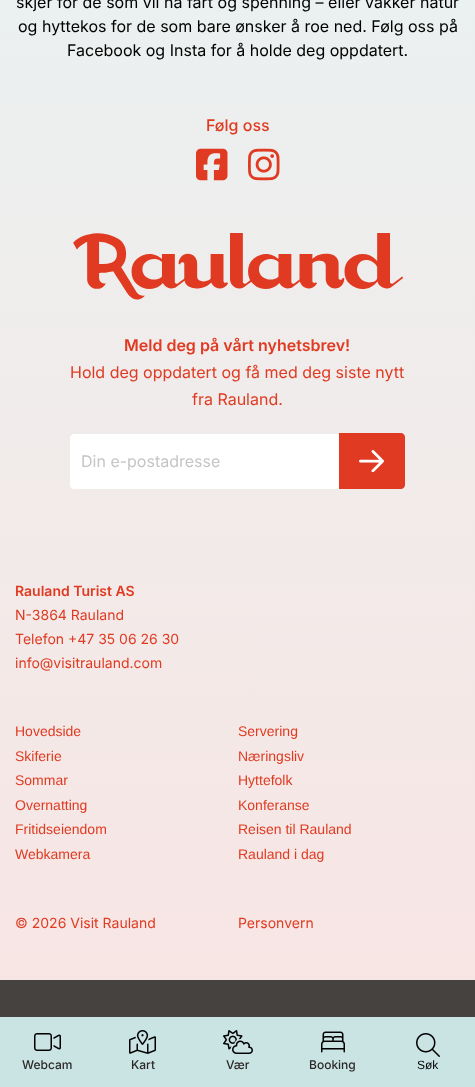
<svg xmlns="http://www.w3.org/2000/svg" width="475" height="1087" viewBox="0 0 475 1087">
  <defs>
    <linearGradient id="g1" gradientUnits="userSpaceOnUse" x1="237" y1="-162" x2="238" y2="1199"><stop offset="0" stop-color="#e9f2f2"/><stop offset="1" stop-color="#fae3e1"/></linearGradient>
  </defs>
  <rect width="100%" height="100%" fill="#ffffff"/>
  <rect x="0" y="0" width="475" height="980" fill="url(#g1)"/>
  <text x="16" y="8" font-family="Inter" font-size="16" fill="#000000">skjer for de som vil ha fart og spenning – eller vakker natur</text>
  <text x="18" y="32" font-family="Inter" font-size="16" fill="#000000">og hyttekos for de som bare ønsker å roe ned. Følg oss på</text>
  <text x="67" y="56" font-family="Inter" font-size="16" fill="#000000">Facebook og Insta for å holde deg oppdatert.</text>
  <text x="206" y="131" font-family="Inter" font-size="16" font-weight="500" fill="#e03b22">Følg oss</text>
  <image x="196" y="148" width="32" height="33" href="img1.png"/>
  <image x="248" y="148" width="32" height="33" href="img2.png"/>
  <image x="73" y="233" width="330" height="67" href="img3.png"/>
  <text x="124" y="351" font-family="Inter" font-size="16" font-weight="600" fill="#e03b22">Meld deg på vårt nyhetsbrev!</text>
  <text x="70" y="378" font-family="Inter" font-size="16" fill="#e03b22">Hold deg oppdatert og få med deg siste nytt</text>
  <text x="192" y="405" font-family="Inter" font-size="16" fill="#e03b22">fra Rauland.</text>
  <path d="M74 433H339V489H74C72 489 70 487 70 485V437C70 435 72 433 74 433Z" fill="#ffffff"/>
  <path d="M74 434H339V433H74C71 433 70 435 70 438C70 436 72 434 74 434Z" fill="#000000" fill-opacity="0.07"/>
  <text x="81" y="467" font-family="Inter" font-size="16" fill="#c5c5c5">Din e-postadresse</text>
  <path d="M339 433H401C403 433 405 435 405 437V485C405 487 403 489 401 489H339Z" fill="#e03b22"/>
  <image x="359" y="450" width="25" height="22" href="img4.png"/>
  <text x="15" y="596" font-family="Inter" font-size="14" font-weight="600" fill="#e03b22">Rauland Turist AS</text>
  <text x="15" y="620" font-family="Inter" font-size="14" fill="#e03b22">N-3864 Rauland</text>
  <text x="15" y="644" font-family="Inter" font-size="14" fill="#e03b22">Telefon +47 35 06 26 30</text>
  <text x="15" y="668" font-family="Inter" font-size="14" fill="#e03b22">info@visitrauland.com</text>
  <text x="15" y="736" font-family="Liberation Sans" font-size="14" fill="#e03b22">Hovedside</text>
  <text x="15" y="761" font-family="Liberation Sans" font-size="14" fill="#e03b22">Skiferie</text>
  <text x="15" y="785" font-family="Liberation Sans" font-size="14" fill="#e03b22">Sommar</text>
  <text x="15" y="810" font-family="Liberation Sans" font-size="14" fill="#e03b22">Overnatting</text>
  <text x="15" y="834" font-family="Liberation Sans" font-size="14" fill="#e03b22">Fritidseiendom</text>
  <text x="15" y="859" font-family="Liberation Sans" font-size="14" fill="#e03b22">Webkamera</text>
  <text x="238" y="736" font-family="Liberation Sans" font-size="14" fill="#e03b22">Servering</text>
  <text x="238" y="761" font-family="Liberation Sans" font-size="14" fill="#e03b22">Næringsliv</text>
  <text x="238" y="785" font-family="Liberation Sans" font-size="14" fill="#e03b22">Hyttefolk</text>
  <text x="238" y="810" font-family="Liberation Sans" font-size="14" fill="#e03b22">Konferanse</text>
  <text x="238" y="834" font-family="Liberation Sans" font-size="14" fill="#e03b22">Reisen til Rauland</text>
  <text x="238" y="859" font-family="Liberation Sans" font-size="14" fill="#e03b22">Rauland i dag</text>
  <text x="15" y="928" font-family="Inter" font-size="14" fill="#e03b22">© 2026 Visit Rauland</text>
  <text x="238" y="928" font-family="Inter" font-size="14" fill="#e03b22">Personvern</text>
  <rect x="0" y="980" width="475" height="37" fill="#464240"/>
  <rect x="0" y="1017" width="475" height="70" fill="#cae3e3"/>
  <image x="34" y="1033" width="27" height="18" href="img5.png"/>
  <text x="22" y="1069" font-family="Inter" font-size="12" font-weight="500" fill="#2a2826">Webcam</text>
  <image x="129" y="1030" width="27" height="24" href="img6.png"/>
  <text x="131" y="1069" font-family="Inter" font-size="12" font-weight="500" fill="#2a2826">Kart</text>
  <image x="223" y="1030" width="30" height="24" href="img7.png"/>
  <text x="226" y="1069" font-family="Inter" font-size="12" font-weight="500" fill="#2a2826">Vær</text>
  <image x="321" y="1031" width="24" height="22" href="img8.png"/>
  <text x="309" y="1069" font-family="Inter" font-size="12" font-weight="500" fill="#2a2826">Booking</text>
  <image x="416" y="1033" width="24" height="24" href="img9.png"/>
  <text x="417" y="1069" font-family="Liberation Sans" font-size="12" fill="#000000">Søk</text>
</svg>
